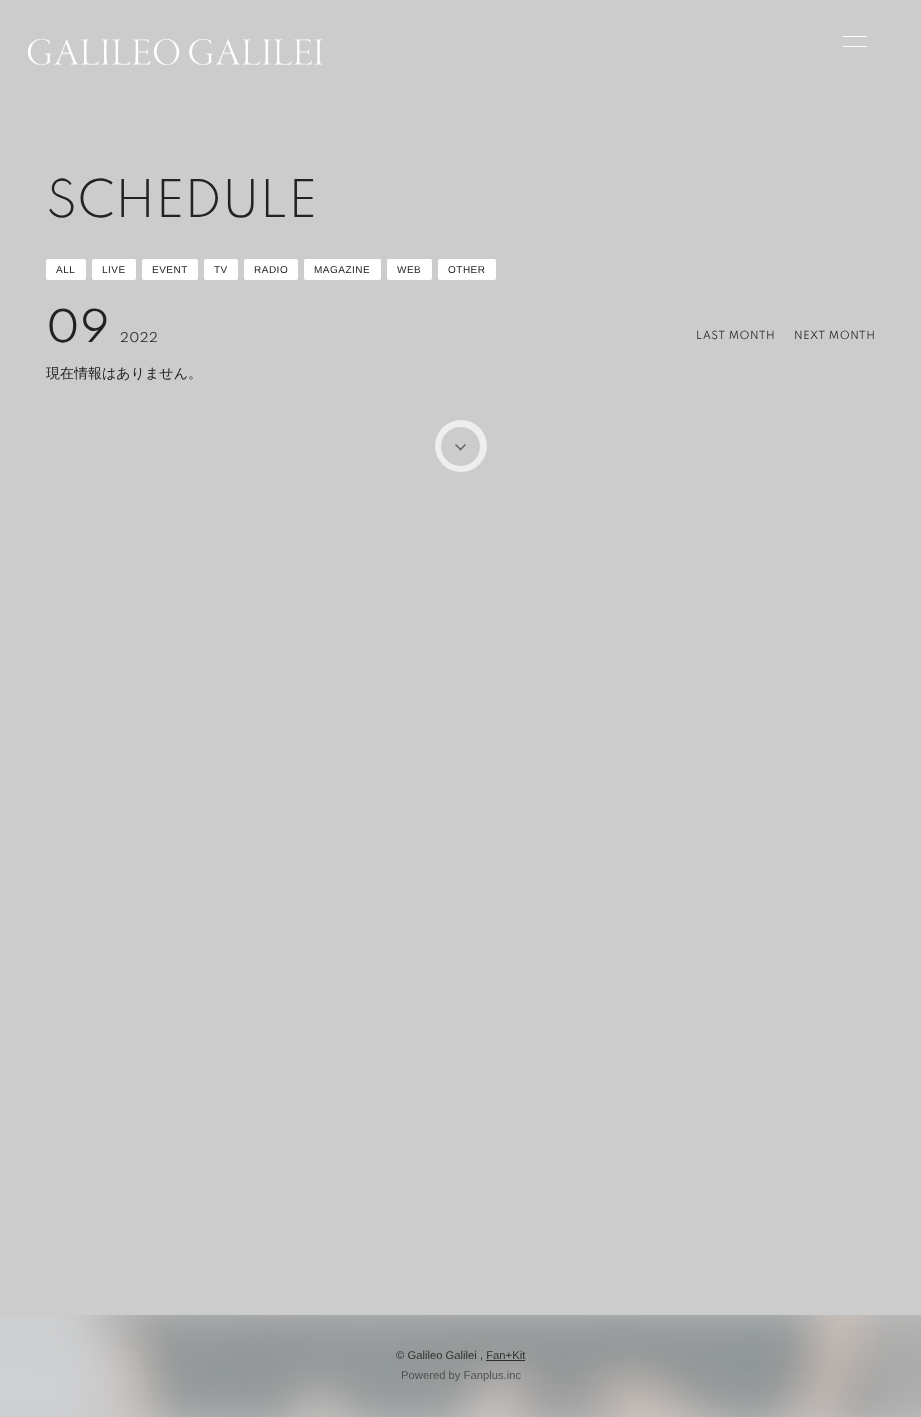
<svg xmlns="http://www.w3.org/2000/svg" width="921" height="1417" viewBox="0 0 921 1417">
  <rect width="100%" height="100%" fill="#cccccc"/>
  <image x="28" y="39" width="294" height="26" href="img1.png"/>
  <rect x="843" y="36" width="24" height="1" fill="#ffffff"/>
  <rect x="843" y="46" width="24" height="1" fill="#ffffff"/>
  <text x="46" y="217" font-family="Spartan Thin" font-size="46" font-weight="300" fill="#222222">SCHEDULE</text>
  <rect x="46" y="259" width="40" height="21" rx="2" fill="#ffffff"/>
  <text x="56" y="273" font-family="Liberation Sans" font-size="10" letter-spacing="0.5" fill="#222222">ALL</text>
  <rect x="92" y="259" width="44" height="21" rx="2" fill="#ffffff"/>
  <text x="102" y="273" font-family="Liberation Sans" font-size="10" letter-spacing="0.5" fill="#222222">LIVE</text>
  <rect x="142" y="259" width="56" height="21" rx="2" fill="#ffffff"/>
  <text x="152" y="273" font-family="Liberation Sans" font-size="10" letter-spacing="0.5" fill="#222222">EVENT</text>
  <rect x="204" y="259" width="34" height="21" rx="2" fill="#ffffff"/>
  <text x="214" y="273" font-family="Liberation Sans" font-size="10" letter-spacing="0.5" fill="#222222">TV</text>
  <rect x="244" y="259" width="54" height="21" rx="2" fill="#ffffff"/>
  <text x="254" y="273" font-family="Liberation Sans" font-size="10" letter-spacing="0.5" fill="#222222">RADIO</text>
  <rect x="304" y="259" width="77" height="21" rx="2" fill="#ffffff"/>
  <text x="314" y="273" font-family="Liberation Sans" font-size="10" letter-spacing="0.5" fill="#222222">MAGAZINE</text>
  <rect x="387" y="259" width="45" height="21" rx="2" fill="#ffffff"/>
  <text x="397" y="273" font-family="Liberation Sans" font-size="10" letter-spacing="0.5" fill="#222222">WEB</text>
  <rect x="438" y="259" width="58" height="21" rx="2" fill="#ffffff"/>
  <text x="448" y="273" font-family="Liberation Sans" font-size="10" letter-spacing="0.5" fill="#222222">OTHER</text>
  <text x="46" y="342" font-family="Spartan Thin" font-size="40" letter-spacing="0.5" fill="#222222">09</text>
  <text x="120" y="342" font-family="Spartan Thin" font-size="12" letter-spacing="0.5" fill="#222222">2022</text>
  <text x="696" y="339" font-family="Spartan Thin" font-size="10" letter-spacing="0.5" fill="#222222">LAST MONTH</text>
  <text x="794" y="339" font-family="Spartan Thin" font-size="10" letter-spacing="0.5" fill="#222222">NEXT MONTH</text>
  <text x="46" y="378" font-family="WenQuanYi Zen Hei" font-size="14" font-weight="500" fill="#222222">現在情報はありません。</text>
  <circle cx="461" cy="446" r="26" fill="#eeeeee"/>
  <circle cx="460.5" cy="446.5" r="19.5" fill="#cccccc"/>
  <path d="M466 445L460.5 450.5L459.5 449.5L465 444Z" fill="#61605b"/>
  <path d="M461.5 449.5L460.5 450.5L455 445L456 444Z" fill="#61605b"/>
  <image x="0" y="1315" width="921" height="102" href="img2.png"/>
  <text x="396" y="1359" font-family="Liberation Sans" font-size="11.25" fill="#2e2e2e">© Galileo Galilei , Fan+Kit</text>
  <rect x="486" y="1360" width="39" height="1" fill="#2e2e2e"/>
  <text x="401" y="1379" font-family="Liberation Sans" font-size="11.25" fill="#4f5050">Powered by Fanplus.inc</text>
</svg>
